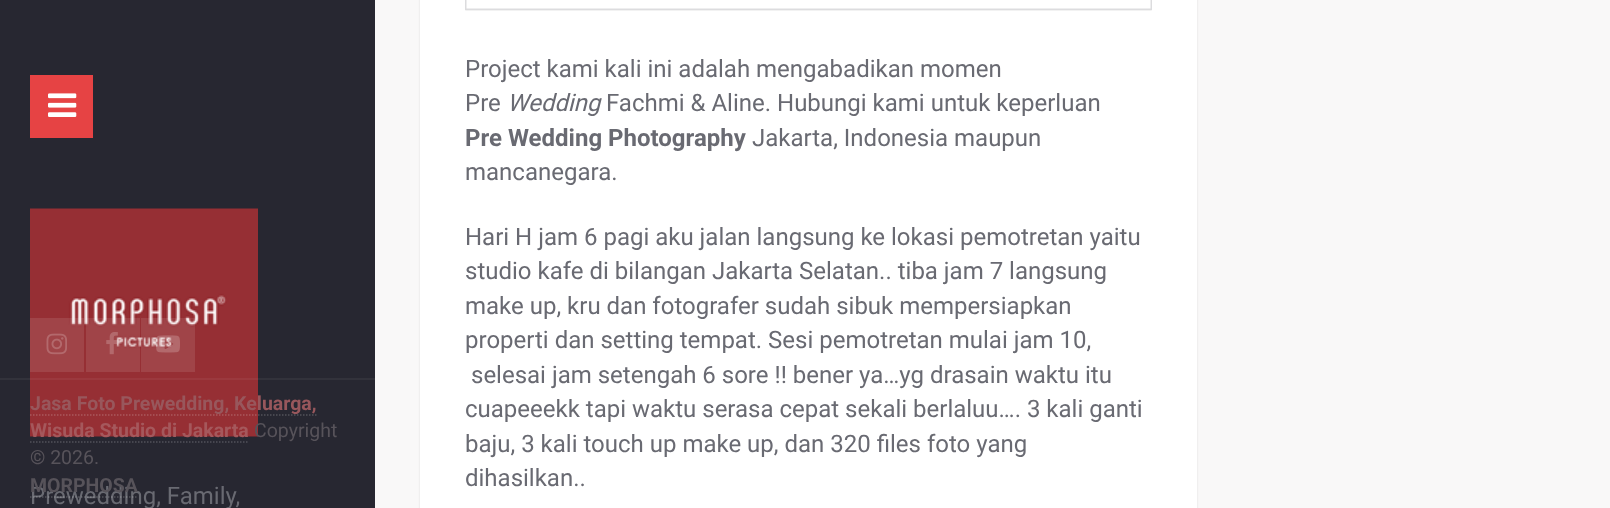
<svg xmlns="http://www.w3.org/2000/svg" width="1610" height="508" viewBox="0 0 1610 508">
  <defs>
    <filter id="blur1" x="-50%" y="-200%" width="200%" height="500%"><feGaussianBlur stdDeviation="1"/></filter>
  </defs>
  <rect width="100%" height="100%" fill="#f9f8f8"/>
  <rect x="0" y="0" width="375" height="508" fill="#272731"/>
  <rect x="30" y="75" width="63" height="63" fill="#e64344"/>
  <image x="48" y="93" width="29" height="24" href="img1.png"/>
  <image x="30" y="208" width="228" height="229" href="img5.png"/>
  <rect x="30" y="318" width="54" height="54" fill="#ffffff" fill-opacity="0.1"/>
  <image x="46" y="333" width="21" height="22" href="img2.png"/>
  <rect x="86" y="318" width="54" height="54" fill="#ffffff" fill-opacity="0.1"/>
  <image x="106" y="332" width="12" height="23" href="img3.png"/>
  <rect x="141" y="318" width="54" height="54" fill="#ffffff" fill-opacity="0.1"/>
  <image x="156" y="335" width="24" height="18" href="img4.png"/>
  <rect x="0" y="378" width="375" height="2" fill="#ffffff" fill-opacity="0.05"/>
  <path d="M30 415H316.5" fill="none" stroke="#ffffff" stroke-opacity="0.2" stroke-width="1.5" stroke-dasharray="1.5 1.5"/>
  <text x="30" y="410" font-family="Roboto" font-size="19.5" font-weight="bold" fill="#98575c">Jasa Foto Prewedding, Keluarga,</text>
  <text x="30" y="437" font-family="Roboto" font-size="19.5" font-weight="bold" fill="#a5585c">Wisuda Studio di Jakarta</text>
  <path d="M30 442H249" fill="none" stroke="#52525a" stroke-width="1.5" stroke-dasharray="1.5 1.5"/>
  <text x="254" y="437" font-family="Roboto" font-size="19.5" fill="#57535a">Copyright</text>
  <text x="30" y="464" font-family="Roboto" font-size="19.5" fill="#57535a">© 2026.</text>
  <text x="30" y="504" font-family="Roboto" font-size="24" fill="#696a72">Prewedding, Family,</text>
  <text x="30" y="492" font-family="Roboto" font-size="19.5" font-weight="bold" fill="#57535a">MORPHOSA</text>
  <path d="M30 497H138" fill="none" stroke="#ffffff" stroke-opacity="0.2" stroke-width="1.5" stroke-dasharray="1.5 1.5"/>
  <rect x="420" y="-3" width="777" height="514" fill="#000000" fill-opacity="0.1" filter="url(#blur1)"/>
  <rect x="420" y="0" width="777" height="508" fill="#ffffff"/>
  <image x="465" y="0" width="687" height="11" href="img6.png"/>
  <text x="465" y="77" font-family="Roboto" font-size="24" fill="#696a72">Project kami kali ini adalah mengabadikan momen</text>
  <text x="465" y="111" font-family="Roboto" font-size="24" fill="#696a72">Pre</text>
  <text x="507" y="111" font-family="Roboto" font-size="24" font-style="italic" fill="#696a72">Wedding</text>
  <text x="606" y="111" font-family="Roboto" font-size="24" fill="#696a72">Fachmi &amp; Aline. Hubungi kami untuk keperluan</text>
  <text x="465" y="146" font-family="Roboto" font-size="24" font-weight="bold" fill="#696a72">Pre Wedding Photography</text>
  <text x="752" y="146" font-family="Roboto" font-size="24" fill="#696a72">Jakarta, Indonesia maupun</text>
  <text x="465" y="180" font-family="Roboto" font-size="24" fill="#696a72">mancanegara.</text>
  <text x="465" y="245" font-family="Roboto" font-size="24" fill="#696a72">Hari H jam 6 pagi aku jalan langsung ke lokasi pemotretan yaitu</text>
  <text x="465" y="279" font-family="Roboto" font-size="24" fill="#696a72">studio kafe di bilangan Jakarta Selatan.. tiba jam 7 langsung</text>
  <text x="465" y="314" font-family="Roboto" font-size="24" fill="#696a72">make up, kru dan fotografer sudah sibuk mempersiapkan</text>
  <text x="465" y="348" font-family="Roboto" font-size="24" fill="#696a72">properti dan setting tempat. Sesi pemotretan mulai jam 10,</text>
  <text x="471" y="383" font-family="Roboto" font-size="24" fill="#696a72">selesai jam setengah 6 sore !! bener ya…yg drasain waktu itu</text>
  <text x="465" y="417" font-family="Roboto" font-size="24" fill="#696a72">cuapeeekk tapi waktu serasa cepat sekali berlaluu…. 3 kali ganti</text>
  <text x="465" y="452" font-family="Roboto" font-size="24" fill="#696a72">baju, 3 kali touch up make up, dan 320 files foto yang</text>
  <text x="465" y="486" font-family="Roboto" font-size="24" fill="#696a72">dihasilkan..</text>
</svg>
